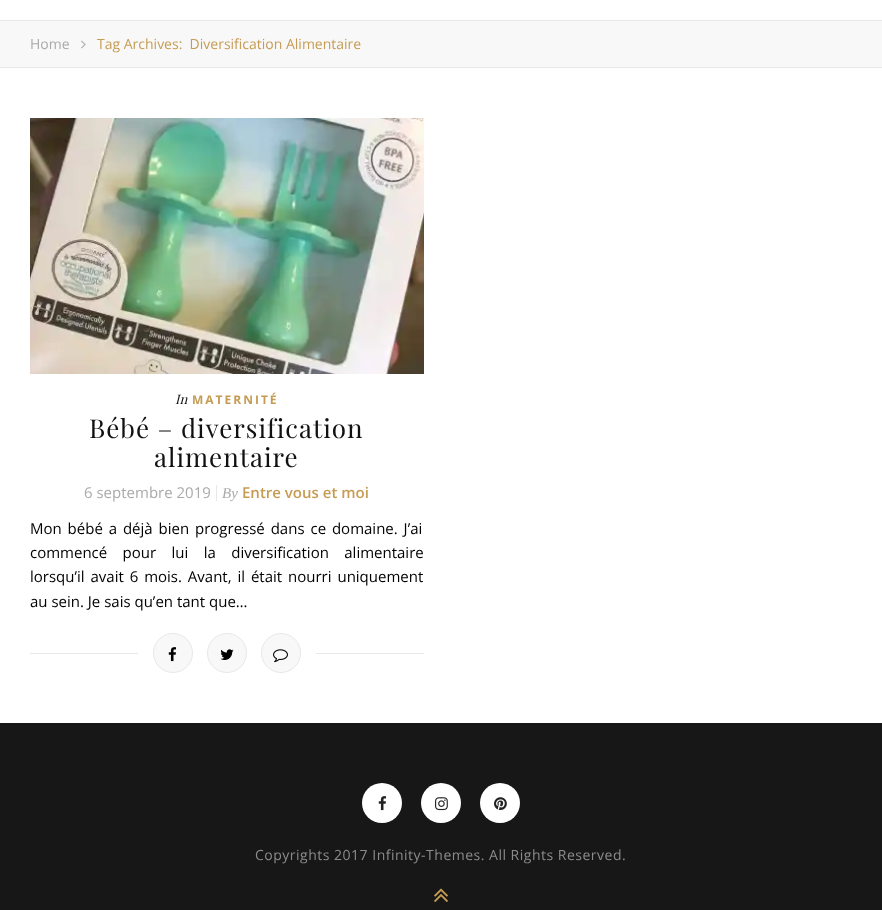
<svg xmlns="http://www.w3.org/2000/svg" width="882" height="910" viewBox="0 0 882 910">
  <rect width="100%" height="100%" fill="#ffffff"/>
  <rect x="0" y="21" width="882" height="46" fill="#f8f8f8"/>
  <rect x="0" y="20" width="882" height="1" fill="#e8e8e8"/>
  <rect x="0" y="67" width="882" height="1" fill="#e8e8e8"/>
  <text x="30" y="49" font-family="Open Sans" font-size="14" fill="#aaaaaa">Home</text>
  <image x="81" y="40" width="5" height="9" href="img1.png"/>
  <text x="97" y="49" font-family="Open Sans" font-size="14" fill="#c69c53" xml:space="preserve">Tag Archives:  Diversification Alimentaire</text>
  <image x="30" y="118" width="394" height="256" href="img2.png"/>
  <text x="175" y="404" font-family="Playfair Display" font-size="13" font-style="italic" fill="#111111">In</text>
  <text x="192" y="404" font-family="Open Sans" font-size="12" font-weight="bold" letter-spacing="2" fill="#c69c53">MATERNITÉ</text>
  <text x="89" y="438" font-family="Playfair Display" font-size="26" letter-spacing="1" fill="#111111">Bébé – diversification</text>
  <text x="154" y="467" font-family="Playfair Display" font-size="26" letter-spacing="1" fill="#111111">alimentaire</text>
  <text x="84" y="498" font-family="Open Sans" font-size="15" fill="#aaaaaa">6 septembre 2019</text>
  <text x="222" y="498" font-family="Liberation Serif" font-size="15" font-style="italic" fill="#aaaaaa">By</text>
  <rect x="216" y="485" width="1" height="16" fill="#e8e8e8"/>
  <text x="242" y="498" font-family="Open Sans" font-size="15" font-weight="600" fill="#c69c53">Entre vous et moi</text>
  <text x="30" y="534" word-spacing="2" font-family="Open Sans" font-size="15" fill="#000000">Mon bébé a déjà bien progressé dans ce domaine. J’ai</text>
  <text x="30" y="558" word-spacing="11.5" font-family="Open Sans" font-size="15" fill="#000000">commencé pour lui la diversification alimentaire</text>
  <text x="30" y="582" word-spacing="2" font-family="Open Sans" font-size="15" fill="#000000">lorsqu’il avait 6 mois. Avant, il était nourri uniquement</text>
  <text x="30" y="607" font-family="Open Sans" font-size="15" fill="#000000">au sein. Je sais qu’en tant que…</text>
  <rect x="30" y="653" width="108" height="1" fill="#e8e8e8"/>
  <circle cx="173" cy="653" r="19.5" fill="#f8f8f8" stroke="#e8e8e8"/>
  <image x="168" y="647" width="9" height="15" href="img3.png"/>
  <circle cx="227" cy="653" r="19.5" fill="#f8f8f8" stroke="#e8e8e8"/>
  <image x="220" y="649" width="14" height="11" href="img4.png"/>
  <circle cx="281" cy="653" r="19.5" fill="#f8f8f8" stroke="#e8e8e8"/>
  <image x="273" y="649" width="15" height="14" href="img5.png"/>
  <rect x="316" y="653" width="108" height="1" fill="#e8e8e8"/>
  <rect x="0" y="723" width="882" height="187" fill="#171717"/>
  <circle cx="382" cy="803" r="20" fill="#ffffff"/>
  <image x="378" y="796" width="9" height="15" href="img6.png"/>
  <circle cx="441" cy="803" r="20" fill="#ffffff"/>
  <image x="435" y="797" width="13" height="14" href="img7.png"/>
  <circle cx="500" cy="803" r="20" fill="#ffffff"/>
  <image x="494" y="797" width="13" height="14" href="img8.png"/>
  <text x="255" y="860" font-family="Open Sans" font-size="14" letter-spacing="0.5" fill="#8c8c8c">Copyrights 2017 Infinity-Themes. All Rights Reserved.</text>
  <image x="434" y="888" width="14" height="14" href="img9.png"/>
</svg>
